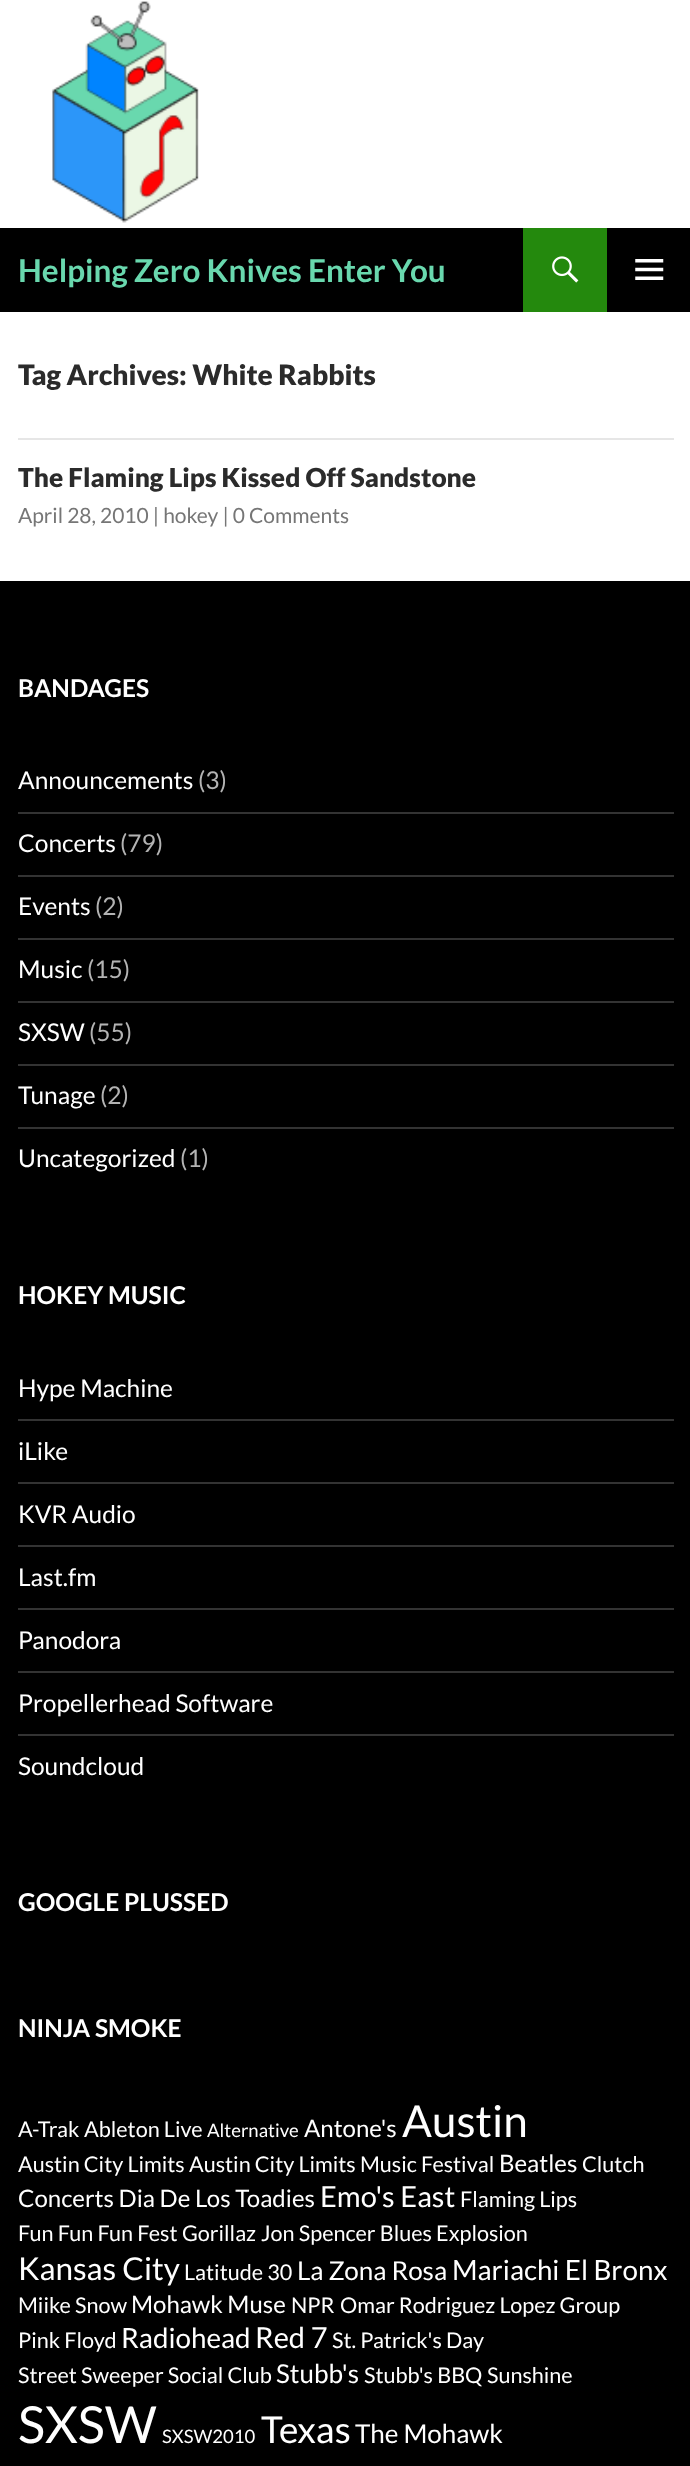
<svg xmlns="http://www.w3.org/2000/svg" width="690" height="2466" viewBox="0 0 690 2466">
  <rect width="100%" height="100%" fill="#ffffff"/>
  <image x="52" y="1" width="147" height="222" href="img1.png"/>
  <rect x="0" y="228" width="690" height="84" fill="#000000"/>
  <text x="18" y="282" font-family="Lato" font-size="31.5" font-weight="bold" fill="#69d8ae">Helping Zero Knives Enter You</text>
  <rect x="523" y="228" width="84" height="84" fill="#24890d"/>
  <image x="552" y="256" width="27" height="27" href="img2.png"/>
  <image x="635" y="259" width="29" height="21" href="img3.png"/>
  <rect x="18" y="438" width="656" height="2" fill="#e6e6e6"/>
  <text x="18" y="385" font-family="Lato" font-size="28" font-weight="900" fill="#2b2b2b">Tag Archives: White Rabbits</text>
  <text x="18" y="487" font-family="Lato" font-size="26.25" font-weight="900" fill="#2b2b2b">The Flaming Lips Kissed Off Sandstone</text>
  <text x="18" y="523" font-family="Lato" font-size="21" fill="#767676">April 28, 2010 | hokey | 0 Comments</text>
  <rect x="0" y="581" width="690" height="1885" fill="#000000"/>
  <text x="18" y="697" font-family="Lato" font-size="24.5" font-weight="bold" fill="#ffffff">BANDAGES</text>
  <text x="18" y="789" font-family="Lato" font-size="24.5" fill="#ffffff">Announcements</text>
  <text x="198" y="789" font-family="Lato" font-size="24.5" fill="#b3b3b3">(3)</text>
  <rect x="18" y="812" width="656" height="2" fill="#333333"/>
  <text x="18" y="852" font-family="Lato" font-size="24.5" fill="#ffffff">Concerts</text>
  <text x="120" y="852" font-family="Lato" font-size="24.5" fill="#b3b3b3">(79)</text>
  <rect x="18" y="875" width="656" height="2" fill="#333333"/>
  <text x="18" y="915" font-family="Lato" font-size="24.5" fill="#ffffff">Events</text>
  <text x="95" y="915" font-family="Lato" font-size="24.5" fill="#b3b3b3">(2)</text>
  <rect x="18" y="938" width="656" height="2" fill="#333333"/>
  <text x="18" y="978" font-family="Lato" font-size="24.5" fill="#ffffff">Music</text>
  <text x="87" y="978" font-family="Lato" font-size="24.5" fill="#b3b3b3">(15)</text>
  <rect x="18" y="1001" width="656" height="2" fill="#333333"/>
  <text x="18" y="1041" font-family="Lato" font-size="24.5" fill="#ffffff">SXSW</text>
  <text x="89" y="1041" font-family="Lato" font-size="24.5" fill="#b3b3b3">(55)</text>
  <rect x="18" y="1064" width="656" height="2" fill="#333333"/>
  <text x="18" y="1104" font-family="Lato" font-size="24.5" fill="#ffffff">Tunage</text>
  <text x="100" y="1104" font-family="Lato" font-size="24.5" fill="#b3b3b3">(2)</text>
  <rect x="18" y="1127" width="656" height="2" fill="#333333"/>
  <text x="18" y="1167" font-family="Lato" font-size="24.5" fill="#ffffff">Uncategorized</text>
  <text x="180" y="1167" font-family="Lato" font-size="24.5" fill="#b3b3b3">(1)</text>
  <text x="18" y="1304" font-family="Lato" font-size="24.5" font-weight="bold" fill="#ffffff">HOKEY MUSIC</text>
  <text x="18" y="1397" font-family="Lato" font-size="24.5" fill="#ffffff">Hype Machine</text>
  <rect x="18" y="1419" width="656" height="2" fill="#333333"/>
  <text x="18" y="1460" font-family="Lato" font-size="24.5" fill="#ffffff">iLike</text>
  <rect x="18" y="1482" width="656" height="2" fill="#333333"/>
  <text x="18" y="1523" font-family="Lato" font-size="24.5" fill="#ffffff">KVR Audio</text>
  <rect x="18" y="1545" width="656" height="2" fill="#333333"/>
  <text x="18" y="1586" font-family="Lato" font-size="24.5" fill="#ffffff">Last.fm</text>
  <rect x="18" y="1608" width="656" height="2" fill="#333333"/>
  <text x="18" y="1649" font-family="Lato" font-size="24.5" fill="#ffffff">Panodora</text>
  <rect x="18" y="1671" width="656" height="2" fill="#333333"/>
  <text x="18" y="1712" font-family="Lato" font-size="24.5" fill="#ffffff">Propellerhead Software</text>
  <rect x="18" y="1734" width="656" height="2" fill="#333333"/>
  <text x="18" y="1775" font-family="Lato" font-size="24.5" fill="#ffffff">Soundcloud</text>
  <text x="18" y="1911" font-family="Lato" font-size="24.5" font-weight="bold" fill="#ffffff">GOOGLE PLUSSED</text>
  <text x="18" y="2037" font-family="Lato" font-size="24.5" font-weight="bold" fill="#ffffff">NINJA SMOKE</text>
  <text x="18" y="2137" font-family="Lato" font-size="21.6" fill="#ffffff">A-Trak</text>
  <text x="84" y="2137" font-family="Lato" font-size="21.6" fill="#ffffff">Ableton Live</text>
  <text x="207" y="2137" font-family="Lato" font-size="18.5" fill="#ffffff">Alternative</text>
  <text x="304" y="2137" font-family="Lato" font-size="24" fill="#ffffff">Antone's</text>
  <text x="402" y="2137" font-family="Lato" font-size="44" fill="#ffffff">Austin</text>
  <text x="18" y="2172" font-family="Lato" font-size="21.6" fill="#ffffff">Austin City Limits</text>
  <text x="189" y="2172" font-family="Lato" font-size="21.6" fill="#ffffff">Austin City Limits Music Festival</text>
  <text x="499" y="2172" font-family="Lato" font-size="24" fill="#ffffff">Beatles</text>
  <text x="582" y="2172" font-family="Lato" font-size="21.6" fill="#ffffff">Clutch</text>
  <text x="18" y="2207" font-family="Lato" font-size="24" fill="#ffffff">Concerts Dia De Los Toadies</text>
  <text x="320" y="2207" font-family="Lato" font-size="29" fill="#ffffff">Emo's East</text>
  <text x="460" y="2207" font-family="Lato" font-size="21.6" fill="#ffffff">Flaming Lips</text>
  <text x="18" y="2241" font-family="Lato" font-size="21.6" fill="#ffffff">Fun Fun Fun Fest</text>
  <text x="182" y="2241" font-family="Lato" font-size="21.6" fill="#ffffff">Gorillaz</text>
  <text x="261" y="2241" font-family="Lato" font-size="21.6" fill="#ffffff">Jon Spencer Blues Explosion</text>
  <text x="18" y="2280" font-family="Lato" font-size="31.5" fill="#ffffff">Kansas City</text>
  <text x="184" y="2280" font-family="Lato" font-size="21.6" fill="#ffffff">Latitude 30</text>
  <text x="297" y="2280" font-family="Lato" font-size="26" fill="#ffffff">La Zona Rosa</text>
  <text x="452" y="2280" font-family="Lato" font-size="27.75" fill="#ffffff">Mariachi El Bronx</text>
  <text x="18" y="2313" font-family="Lato" font-size="21.6" fill="#ffffff">Miike Snow</text>
  <text x="131" y="2313" font-family="Lato" font-size="24" fill="#ffffff">Mohawk Muse</text>
  <text x="291" y="2313" font-family="Lato" font-size="21.6" fill="#ffffff">NPR</text>
  <text x="340" y="2313" font-family="Lato" font-size="21.6" fill="#ffffff">Omar Rodriguez Lopez Group</text>
  <text x="18" y="2348" font-family="Lato" font-size="21.6" fill="#ffffff">Pink Floyd</text>
  <text x="121" y="2348" font-family="Lato" font-size="27.75" fill="#ffffff">Radiohead</text>
  <text x="255" y="2348" font-family="Lato" font-size="29" fill="#ffffff">Red 7</text>
  <text x="332" y="2348" font-family="Lato" font-size="21.6" fill="#ffffff">St. Patrick's Day</text>
  <text x="18" y="2383" font-family="Lato" font-size="21.6" fill="#ffffff">Street Sweeper Social Club</text>
  <text x="276" y="2383" font-family="Lato" font-size="26" fill="#ffffff">Stubb's</text>
  <text x="364" y="2383" font-family="Lato" font-size="21.6" fill="#ffffff">Stubb's BBQ</text>
  <text x="487" y="2383" font-family="Lato" font-size="21.6" fill="#ffffff">Sunshine</text>
  <text x="18" y="2443" font-family="Lato" font-size="51" fill="#ffffff">SXSW</text>
  <text x="162" y="2443" font-family="Lato" font-size="18.5" fill="#ffffff">SXSW2010</text>
  <text x="261" y="2443" font-family="Lato" font-size="37" fill="#ffffff">Texas</text>
  <text x="355" y="2443" font-family="Lato" font-size="26" fill="#ffffff">The Mohawk</text>
</svg>
